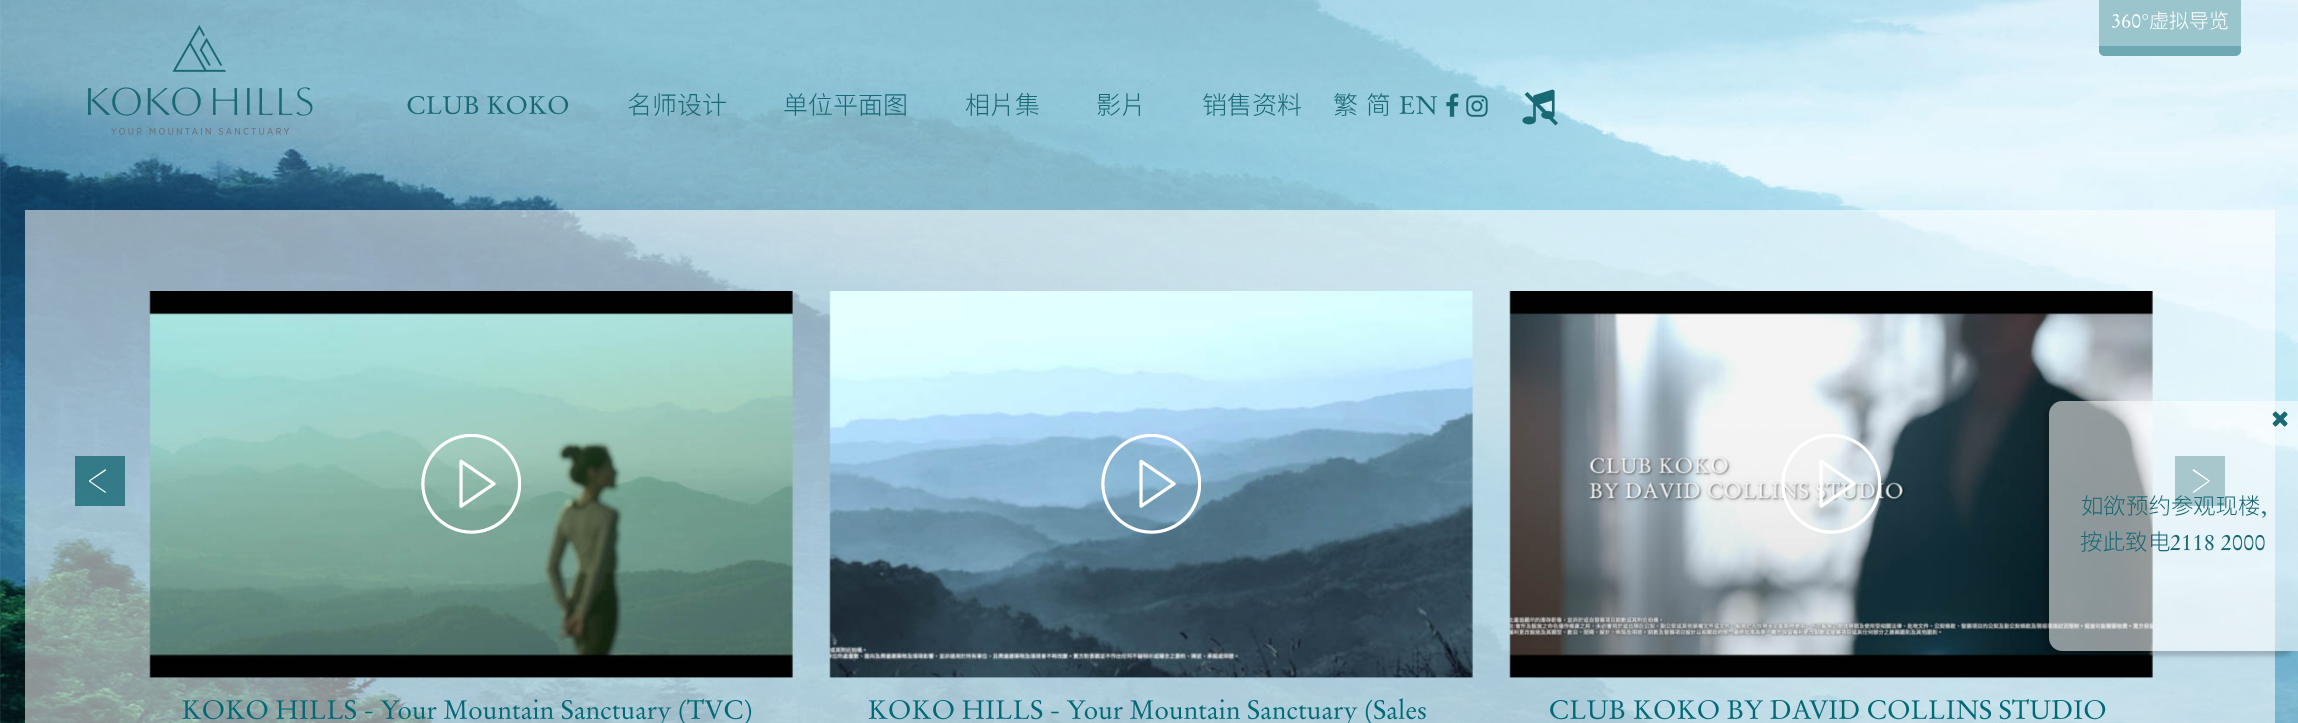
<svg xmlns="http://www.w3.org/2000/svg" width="2298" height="723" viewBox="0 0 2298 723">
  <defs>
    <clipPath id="clip1"><path d="M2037 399H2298V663H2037ZM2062 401H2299V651H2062C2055 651 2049 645 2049 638V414C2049 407 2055 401 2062 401Z" clip-rule="evenodd"/></clipPath>
    <filter id="blur1" x="-50%" y="-200%" width="200%" height="500%"><feGaussianBlur stdDeviation="2"/></filter>
  </defs>
  <rect width="100%" height="100%" fill="#ffffff"/>
  <image x="0" y="0" width="2298" height="723" href="img1.png"/>
  <rect x="25" y="210" width="2250" height="513" fill="#ffffff" fill-opacity="0.55"/>
  <rect x="75" y="456" width="50" height="50" fill="#196975" fill-opacity="0.8"/>
  <path d="M89 480.5L105.5 469L106 470.5L89.5 481.5Z" fill="#ffffff"/>
  <path d="M89.5 480.5L106 492L105.5 493L89 481.5Z" fill="#ffffff"/>
  <image x="149" y="291" width="644" height="387" href="img2.png"/>
  <image x="421" y="434" width="100" height="100" href="img3.png"/>
  <image x="182" y="699" width="570" height="24" href="img4.png"/>
  <image x="829" y="291" width="644" height="387" href="img5.png"/>
  <image x="1101" y="434" width="100" height="100" href="img6.png"/>
  <image x="868" y="698" width="558" height="25" href="img7.png"/>
  <image x="1509" y="291" width="644" height="387" href="img8.png"/>
  <image x="1781" y="434" width="100" height="100" href="img9.png"/>
  <image x="1550" y="699" width="556" height="21" href="img10.png"/>
  <rect x="2175" y="456" width="50" height="50" fill="#196975" fill-opacity="0.8"/>
  <path d="M2192.5 492L2209 480.5L2209.5 481.5L2193.5 493Z" fill="#ffffff"/>
  <path d="M2193.5 469L2209.5 480.5L2209 481.5L2192.5 470.5Z" fill="#ffffff"/>
  <path d="M2099 0H2241V50C2241 53.5 2238.5 56 2235 56H2105C2101.5 56 2099 53.5 2099 50Z" fill="#9ac5cd"/>
  <image x="2112" y="14" width="36" height="14" href="img11.png"/>
  <text x="2149" y="28" font-family="Noto Sans SC" font-size="20" font-weight="300" fill="#ffffff">虚拟导览</text>
  <path d="M2099 46H2241V50C2241 53.5 2238.5 56 2235 56H2105C2101.5 56 2099 53.5 2099 50Z" fill="#6ea8b3"/>
  <image x="88" y="25" width="225" height="110" href="img12.png"/>
  <image x="407" y="95" width="162" height="20" href="img13.png"/>
  <text x="627" y="114" font-family="Noto Sans SC" font-size="25" font-weight="300" fill="#196975">名师设计</text>
  <text x="783" y="114" font-family="Noto Sans SC" font-size="25" font-weight="300" fill="#196975">单位平面图</text>
  <text x="965" y="114" font-family="Noto Sans TC" font-size="25" font-weight="300" fill="#196975">相片集</text>
  <text x="1096" y="114" font-family="Noto Sans TC" font-size="25" font-weight="300" fill="#196975">影片</text>
  <text x="1202" y="114" font-family="Noto Sans SC" font-size="25" font-weight="300" fill="#196975">销</text>
  <text x="1227" y="114" font-family="Noto Sans TC" font-size="25" font-weight="300" fill="#196975">售</text>
  <text x="1252" y="114" font-family="Noto Sans SC" font-size="25" font-weight="300" fill="#196975">资料</text>
  <text x="1333" y="114" font-family="Noto Sans TC" font-size="25" font-weight="300" fill="#196975">繁</text>
  <text x="1366" y="114" font-family="Noto Sans SC" font-size="25" font-weight="300" fill="#196975">简</text>
  <image x="1399" y="96" width="39" height="19" href="img14.png"/>
  <image x="1446" y="93" width="13" height="24" href="img15.png"/>
  <image x="1466" y="95" width="22" height="22" href="img16.png"/>
  <path d="M1527.5 92L1558 123L1555.5 125.5L1524.5 94.5Z" fill="#196975"/>
  <image x="1522" y="89" width="33" height="36" href="img17.png"/>
  <g clip-path="url(#clip1)">
    <rect x="2044" y="406" width="250" height="250" rx="13" fill="#000000" fill-opacity="0.2" filter="url(#blur1)"/>
  </g>
  <path d="M2062 401H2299V651H2062C2055 651 2049 645 2049 638V414C2049 407 2055 401 2062 401Z" fill="#ffffff" fill-opacity="0.55"/>
  <image x="2272" y="411" width="16" height="16" href="img18.png"/>
  <text x="2081" y="514" font-family="Noto Sans SC" font-size="22.5" font-weight="300" fill="#196975">如</text>
  <text x="2103" y="514" font-family="Noto Sans TC" font-size="22.5" font-weight="300" fill="#196975">欲</text>
  <text x="2126" y="514" font-family="Noto Sans SC" font-size="22.5" font-weight="300" fill="#196975">预约</text>
  <text x="2171" y="514" font-family="Noto Sans TC" font-size="22.5" font-weight="300" fill="#196975">参</text>
  <text x="2193" y="514" font-family="Noto Sans SC" font-size="22.5" font-weight="300" fill="#196975">观现楼</text>
  <image x="2262" y="511" width="4" height="7" href="img19.png"/>
  <text x="2080" y="550" font-family="Noto Sans TC" font-size="22.5" font-weight="300" fill="#196975">按此致</text>
  <text x="2148" y="550" font-family="Noto Sans SC" font-size="22.5" font-weight="300" fill="#196975">电</text>
  <image x="2170" y="534" width="95" height="17" href="img20.png"/>
</svg>
